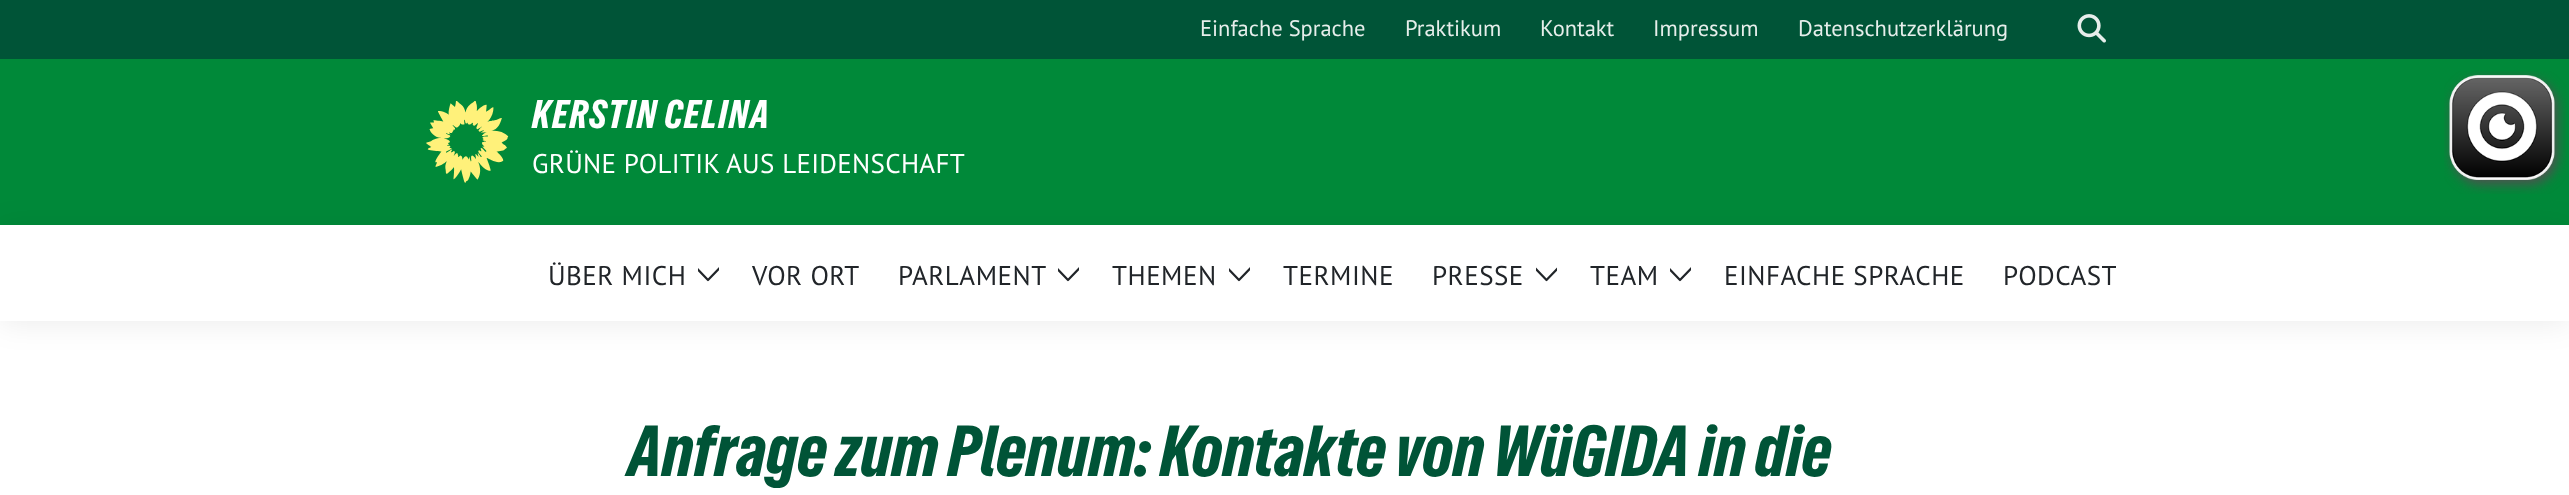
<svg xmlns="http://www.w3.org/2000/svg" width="2569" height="495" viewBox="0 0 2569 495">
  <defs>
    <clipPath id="clip1"><path d="M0 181H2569V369H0ZM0 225H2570V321H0Z" clip-rule="evenodd"/></clipPath>
    <filter id="blur1" x="-50%" y="-200%" width="200%" height="500%"><feGaussianBlur stdDeviation="15"/></filter>
    <clipPath id="clip2"><rect x="698" y="255" width="21" height="36"/></clipPath>
    <clipPath id="clip3"><rect x="1058" y="255" width="21" height="36"/></clipPath>
    <clipPath id="clip4"><rect x="1229" y="255" width="21" height="36"/></clipPath>
    <clipPath id="clip5"><rect x="1536" y="255" width="21" height="36"/></clipPath>
    <clipPath id="clip6"><rect x="1670" y="255" width="21" height="36"/></clipPath>
  </defs>
  <rect width="100%" height="100%" fill="#ffffff"/>
  <rect x="0" y="0" width="2569" height="59" fill="#005437"/>
  <text x="1200" y="36" font-family="PT Sans" font-size="22.5" fill="#e6eeeb">Einfache Sprache</text>
  <text x="1405" y="36" font-family="PT Sans" font-size="22.5" fill="#e6eeeb">Praktikum</text>
  <text x="1540" y="36" font-family="PT Sans" font-size="22.5" fill="#e6eeeb">Kontakt</text>
  <text x="1653" y="36" font-family="PT Sans" font-size="22.5" fill="#e6eeeb">Impressum</text>
  <text x="1798" y="36" font-family="PT Sans" font-size="22.5" fill="#e6eeeb">Datenschutzerklärung</text>
  <image x="2077" y="14" width="29" height="29" href="img1.png"/>
  <rect x="0" y="59" width="2569" height="166" fill="#008939"/>
  <image x="426" y="101" width="83" height="82" href="img2.png"/>
  <text x="532" y="128" font-family="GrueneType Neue" font-size="37.5" letter-spacing="1.5" fill="#ffffff">KERSTIN CELINA</text>
  <text x="532" y="173" font-family="PT Sans" font-size="27" letter-spacing="0.3" fill="#ffffff">GRÜNE POLITIK AUS LEIDENSCHAFT</text>
  <g clip-path="url(#clip1)">
    <rect x="0" y="227" width="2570" height="96" fill="#000000" fill-opacity="0.08" filter="url(#blur1)"/>
  </g>
  <text x="548" y="285" font-family="PT Sans" font-size="27" letter-spacing="0.5" fill="#212529">ÜBER MICH</text>
  <g clip-path="url(#clip2)">
    <path d="M694.5 266L708 280L721.5 266" fill="none" stroke="#212529" stroke-width="2.2" stroke-linecap="round" stroke-linejoin="round"/>
  </g>
  <text x="752" y="285" font-family="PT Sans" font-size="27" letter-spacing="0.5" fill="#212529">VOR ORT</text>
  <text x="898" y="285" font-family="PT Sans" font-size="27" letter-spacing="0.5" fill="#212529">PARLAMENT</text>
  <g clip-path="url(#clip3)">
    <path d="M1054.5 266L1068 280L1081.5 266" fill="none" stroke="#212529" stroke-width="2.2" stroke-linecap="round" stroke-linejoin="round"/>
  </g>
  <text x="1112" y="285" font-family="PT Sans" font-size="27" letter-spacing="0.5" fill="#212529">THEMEN</text>
  <g clip-path="url(#clip4)">
    <path d="M1225.5 266L1239 280L1252.5 266" fill="none" stroke="#212529" stroke-width="2.2" stroke-linecap="round" stroke-linejoin="round"/>
  </g>
  <text x="1283" y="285" font-family="PT Sans" font-size="27" letter-spacing="0.5" fill="#212529">TERMINE</text>
  <text x="1432" y="285" font-family="PT Sans" font-size="27" letter-spacing="0.5" fill="#212529">PRESSE</text>
  <g clip-path="url(#clip5)">
    <path d="M1533 266L1546.5 280L1560 266" fill="none" stroke="#212529" stroke-width="2.2" stroke-linecap="round" stroke-linejoin="round"/>
  </g>
  <text x="1590" y="285" font-family="PT Sans" font-size="27" letter-spacing="0.5" fill="#212529">TEAM</text>
  <g clip-path="url(#clip6)">
    <path d="M1666.5 266L1680 280L1693.5 266" fill="none" stroke="#212529" stroke-width="2.2" stroke-linecap="round" stroke-linejoin="round"/>
  </g>
  <text x="1724" y="285" font-family="PT Sans" font-size="27" letter-spacing="0.5" fill="#212529">EINFACHE SPRACHE</text>
  <text x="2003" y="285" font-family="PT Sans" font-size="27" letter-spacing="0.5" fill="#212529">PODCAST</text>
  <text x="628" y="476" font-family="GrueneType Neue" font-size="67.5" fill="#005437">Anfrage zum Plenum: Kontakte von WüGIDA in die</text>
  <image x="2444" y="71" width="122" height="123" href="img3.png"/>
</svg>
